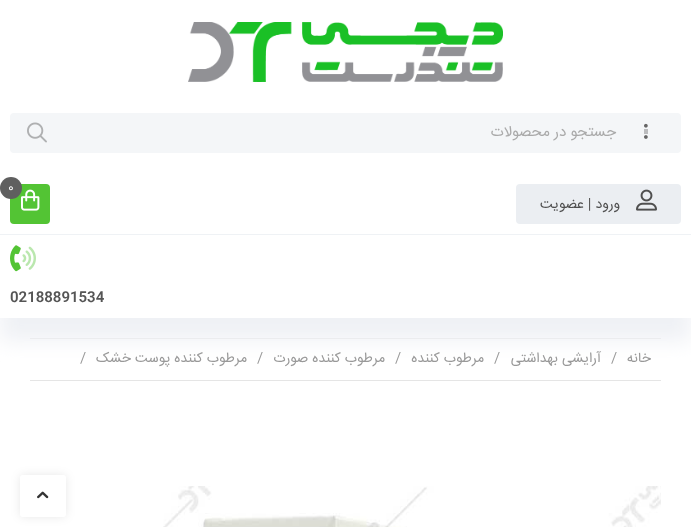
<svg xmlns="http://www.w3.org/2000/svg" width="691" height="527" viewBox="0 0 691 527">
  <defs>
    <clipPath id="clip1"><rect x="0" y="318" width="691" height="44"/></clipPath>
    <filter id="blur1" x="-50%" y="-200%" width="200%" height="500%"><feGaussianBlur stdDeviation="10"/></filter>
    <filter id="blur2" x="-50%" y="-200%" width="200%" height="500%"><feGaussianBlur stdDeviation="5"/></filter>
  </defs>
  <rect width="100%" height="100%" fill="#ffffff"/>
  <rect x="0" y="234" width="691" height="1" fill="#eff2f5"/>
  <image x="188" y="22" width="315" height="60" href="img1.png"/>
  <rect x="10" y="113" width="671" height="40" rx="4" fill="#f4f6f8"/>
  <image x="644" y="123" width="4" height="16" href="img2.png"/>
  <rect x="644" y="129" width="4" height="5" fill="#bbbcbe"/>
  <text x="616" y="136" font-family="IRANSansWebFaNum" font-size="15" direction="rtl" fill="#aaaaaa">جستجو در محصولات</text>
  <image x="27" y="122" width="20" height="21" href="img3.png"/>
  <rect x="10" y="184" width="40" height="40" rx="4" fill="#53c434"/>
  <image x="21" y="189" width="19" height="22" href="img4.png"/>
  <circle cx="11" cy="188" r="11" fill="#5f5f5f"/>
  <text x="8" y="191" font-family="IRANSansWebFaNum" font-size="12" fill="#ffffff">0</text>
  <rect x="516" y="184" width="165" height="40" rx="4" fill="#ebeef2"/>
  <image x="636" y="189" width="21" height="22" href="img5.png"/>
  <text x="620" y="208" font-family="IRANSansWebFaNum" font-size="14" direction="rtl" fill="#4f4f4f">ورود | عضویت</text>
  <rect x="30" y="338" width="631" height="1" fill="#e5e5e5"/>
  <g clip-path="url(#clip1)">
    <rect x="0" y="258" width="691" height="83" fill="#eff1f5" filter="url(#blur1)"/>
  </g>
  <image x="22" y="246" width="14" height="24" href="img6.png"/>
  <image x="10" y="245" width="11" height="27" href="img7.png"/>
  <text x="10" y="302" font-family="Roboto" font-size="15" font-weight="600" fill="#555555">02188891534</text>
  <rect x="30" y="380" width="631" height="1" fill="#e5e5e5"/>
  <text x="651" y="362" font-family="IRANSansWebFaNum" font-size="14" direction="rtl" fill="#999999">خانه</text>
  <text x="611" y="362" font-family="IRANSansWebFaNum" font-size="14" fill="#999999">/</text>
  <text x="601" y="362" font-family="IRANSansWebFaNum" font-size="14" direction="rtl" fill="#999999">آرایشی بهداشتی</text>
  <text x="494" y="362" font-family="IRANSansWebFaNum" font-size="14" fill="#999999">/</text>
  <text x="484" y="362" font-family="IRANSansWebFaNum" font-size="14" direction="rtl" fill="#999999">مرطوب کننده</text>
  <text x="395" y="362" font-family="IRANSansWebFaNum" font-size="14" fill="#999999">/</text>
  <text x="385" y="362" font-family="IRANSansWebFaNum" font-size="14" direction="rtl" fill="#999999">مرطوب کننده صورت</text>
  <text x="257" y="362" font-family="IRANSansWebFaNum" font-size="14" fill="#999999">/</text>
  <text x="247" y="362" font-family="IRANSansWebFaNum" font-size="14" direction="rtl" fill="#999999">مرطوب کننده پوست خشک</text>
  <text x="80" y="362" font-family="IRANSansWebFaNum" font-size="14" fill="#999999">/</text>
  <image x="163" y="486" width="498" height="41" href="img8.png"/>
  <rect x="20" y="475" width="46" height="42" rx="3" fill="#000000" fill-opacity="0.09" filter="url(#blur2)"/>
  <rect x="20" y="475" width="46" height="42" rx="3" fill="#ffffff"/>
  <image x="37" y="491" width="12" height="8" href="img9.png"/>
</svg>
